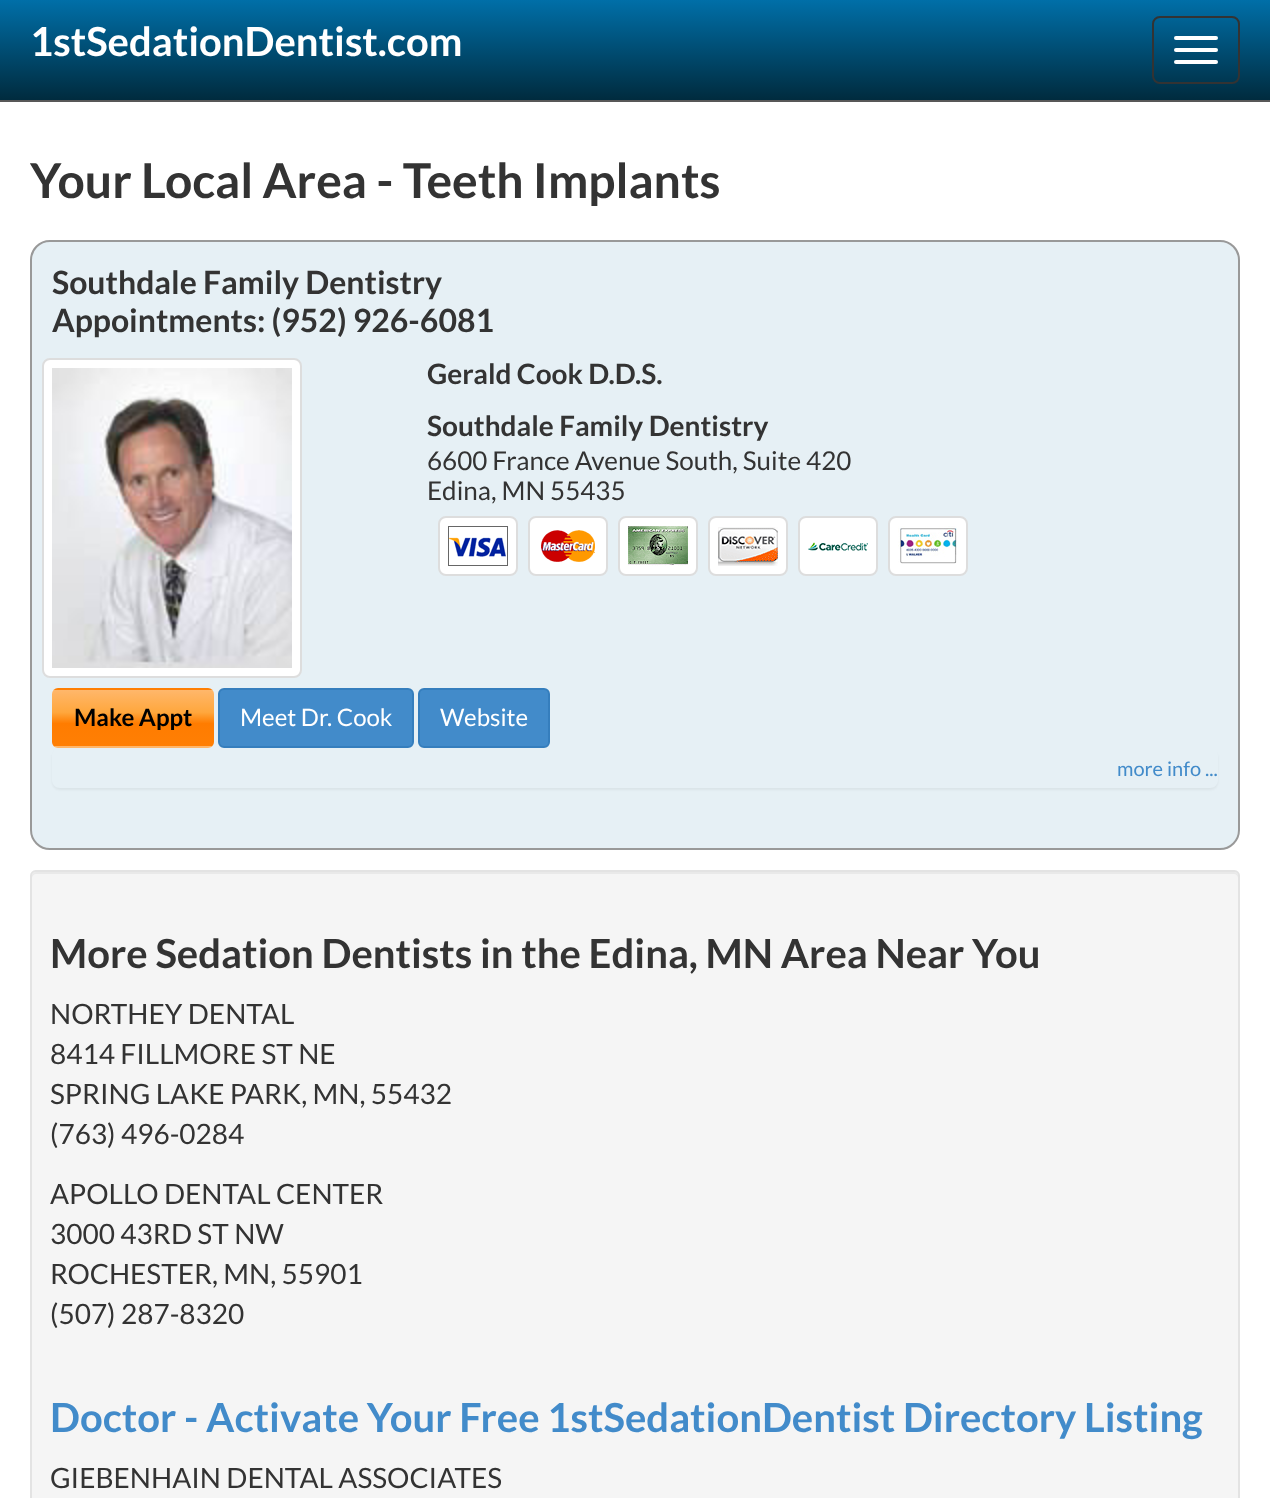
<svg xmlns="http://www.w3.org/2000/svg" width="1270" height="1498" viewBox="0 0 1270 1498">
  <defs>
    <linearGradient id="g1" gradientUnits="userSpaceOnUse" x1="635" y1="0" x2="635" y2="100"><stop offset="0" stop-color="#006fa8"/><stop offset="1" stop-color="#002b3e"/></linearGradient>
    <clipPath id="clip1"><rect x="52" y="688" width="162" height="60" rx="6"/></clipPath>
    <linearGradient id="g2" gradientUnits="userSpaceOnUse" x1="133" y1="634" x2="133" y2="690"><stop offset="0" stop-color="#ffb76b"/><stop offset="0.4" stop-color="#ffa73d"/><stop offset="0.6" stop-color="#ff7c00"/><stop offset="1" stop-color="#ff7f04"/></linearGradient>
    <linearGradient id="g3" gradientUnits="userSpaceOnUse" x1="133" y1="690" x2="133" y2="746"><stop offset="0" stop-color="#ffb76b"/><stop offset="0.4" stop-color="#ffa73d"/><stop offset="0.6" stop-color="#ff7c00"/><stop offset="1" stop-color="#ff7f04"/></linearGradient>
    <linearGradient id="g4" gradientUnits="userSpaceOnUse" x1="133" y1="746" x2="133" y2="802"><stop offset="0" stop-color="#ffb76b"/><stop offset="0.4" stop-color="#ffa73d"/><stop offset="0.6" stop-color="#ff7c00"/><stop offset="1" stop-color="#ff7f04"/></linearGradient>
    <clipPath id="clip2"><path d="M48 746H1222V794H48ZM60 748H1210C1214.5 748 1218 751.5 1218 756V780C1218 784.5 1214.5 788 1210 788H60C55.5 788 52 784.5 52 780V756C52 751.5 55.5 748 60 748Z" clip-rule="evenodd"/></clipPath>
    <filter id="blur1" x="-50%" y="-200%" width="200%" height="500%"><feGaussianBlur stdDeviation="1"/></filter>
  </defs>
  <rect width="100%" height="100%" fill="#ffffff"/>
  <rect x="0" y="0" width="1270" height="100" fill="url(#g1)"/>
  <rect x="0" y="100" width="1270" height="2" fill="#585858"/>
  <text x="30" y="56" font-family="Lato" font-size="40" font-weight="bold" fill="#ffffff">1stSedationDentist.com</text>
  <rect x="1153" y="17" width="86" height="66" rx="7" fill="none" stroke="#333333" stroke-width="2"/>
  <rect x="1174" y="36" width="44" height="4" rx="2" fill="#ffffff"/>
  <rect x="1174" y="48" width="44" height="4" rx="2" fill="#ffffff"/>
  <rect x="1174" y="60" width="44" height="4" rx="2" fill="#ffffff"/>
  <text x="30" y="198" font-family="Lato" font-size="48" font-weight="bold" fill="#333333">Your Local Area - Teeth Implants</text>
  <rect x="31" y="241" width="1208" height="608" rx="19" fill="#e6f0f5" stroke="#999999" stroke-width="2"/>
  <text x="52" y="294" font-family="Lato" font-size="32" font-weight="bold" fill="#333333">Southdale Family Dentistry</text>
  <text x="52" y="332" font-family="Lato" font-size="32" font-weight="bold" fill="#333333">Appointments: (952) 926-6081</text>
  <rect x="43" y="359" width="258" height="318" rx="7" fill="#ffffff" stroke="#dddddd" stroke-width="2"/>
  <image x="52" y="368" width="240" height="300" href="img1.png"/>
  <text x="427" y="384" font-family="Lato" font-size="28" font-weight="bold" fill="#333333">Gerald Cook D.D.S.</text>
  <text x="427" y="436" font-family="Lato" font-size="28" font-weight="bold" fill="#333333">Southdale Family Dentistry</text>
  <text x="427" y="470" font-family="Lato" font-size="26" fill="#333333">6600 France Avenue South, Suite 420</text>
  <text x="427" y="500" font-family="Lato" font-size="26" fill="#333333">Edina, MN 55435</text>
  <rect x="439" y="517" width="78" height="58" rx="7" fill="#ffffff" stroke="#dddddd" stroke-width="2"/>
  <image x="448" y="526" width="60" height="40" href="img2.png"/>
  <rect x="529" y="517" width="78" height="58" rx="7" fill="#ffffff" stroke="#dddddd" stroke-width="2"/>
  <image x="541" y="530" width="54" height="32" href="img3.png"/>
  <rect x="619" y="517" width="78" height="58" rx="7" fill="#ffffff" stroke="#dddddd" stroke-width="2"/>
  <image x="628" y="526" width="60" height="40" href="img4.png"/>
  <rect x="709" y="517" width="78" height="58" rx="7" fill="#ffffff" stroke="#dddddd" stroke-width="2"/>
  <image x="718" y="527" width="60" height="39" href="img5.png"/>
  <rect x="799" y="517" width="78" height="58" rx="7" fill="#ffffff" stroke="#dddddd" stroke-width="2"/>
  <image x="808" y="542" width="60" height="9" href="img6.png"/>
  <rect x="889" y="517" width="78" height="58" rx="7" fill="#ffffff" stroke="#dddddd" stroke-width="2"/>
  <image x="898" y="526" width="59" height="38" href="img7.png"/>
  <g clip-path="url(#clip1)">
    <rect x="52" y="688" width="162" height="2" fill="url(#g2)"/>
    <rect x="52" y="690" width="162" height="56" fill="url(#g3)"/>
    <rect x="52" y="746" width="162" height="2" fill="url(#g4)"/>
  </g>
  <text x="74" y="726" font-family="Lato" font-size="24" font-weight="bold" fill="#000000">Make Appt</text>
  <rect x="219" y="689" width="194" height="58" rx="5" fill="#428bca" stroke="#357ebd" stroke-width="2"/>
  <text x="240" y="726" font-family="Lato" font-size="24" fill="#ffffff">Meet Dr. Cook</text>
  <rect x="419" y="689" width="130" height="58" rx="5" fill="#428bca" stroke="#357ebd" stroke-width="2"/>
  <text x="440" y="726" font-family="Lato" font-size="24" fill="#ffffff">Website</text>
  <g clip-path="url(#clip2)">
    <rect x="52" y="750" width="1166" height="40" rx="8" fill="#000000" fill-opacity="0.05" filter="url(#blur1)"/>
  </g>
  <text x="1117" y="776" font-family="Lato" font-size="20" fill="#428bca">more info ...</text>
  <rect x="30" y="870" width="1210" height="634" rx="6" fill="#f5f5f5"/>
  <path d="M36 874H1234C1236 874 1238 876 1238 878V876C1238 874 1236 872 1234 872H36C34 872 32 874 32 876V878C32 876 34 874 36 874Z" fill="#e9e9e9"/>
  <rect x="31" y="871" width="1208" height="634" rx="5" fill="none" stroke="#e3e3e3" stroke-width="2"/>
  <text x="50" y="968" font-family="Lato" font-size="40" font-weight="bold" fill="#333333">More Sedation Dentists in the Edina, MN Area Near You</text>
  <text x="50" y="1024" font-family="Lato" font-size="28" fill="#333333">NORTHEY DENTAL</text>
  <text x="50" y="1064" font-family="Lato" font-size="28" fill="#333333">8414 FILLMORE ST NE</text>
  <text x="50" y="1104" font-family="Lato" font-size="28" fill="#333333">SPRING LAKE PARK, MN, 55432</text>
  <text x="50" y="1144" font-family="Lato" font-size="28" fill="#333333">(763) 496-0284</text>
  <text x="50" y="1204" font-family="Lato" font-size="28" fill="#333333">APOLLO DENTAL CENTER</text>
  <text x="50" y="1244" font-family="Lato" font-size="28" fill="#333333">3000 43RD ST NW</text>
  <text x="50" y="1284" font-family="Lato" font-size="28" fill="#333333">ROCHESTER, MN, 55901</text>
  <text x="50" y="1324" font-family="Lato" font-size="28" fill="#333333">(507) 287-8320</text>
  <text x="50" y="1432" font-family="Lato" font-size="40" font-weight="bold" fill="#428bca">Doctor - Activate Your Free 1stSedationDentist Directory Listing</text>
  <text x="50" y="1488" font-family="Lato" font-size="28" fill="#333333">GIEBENHAIN DENTAL ASSOCIATES</text>
</svg>
